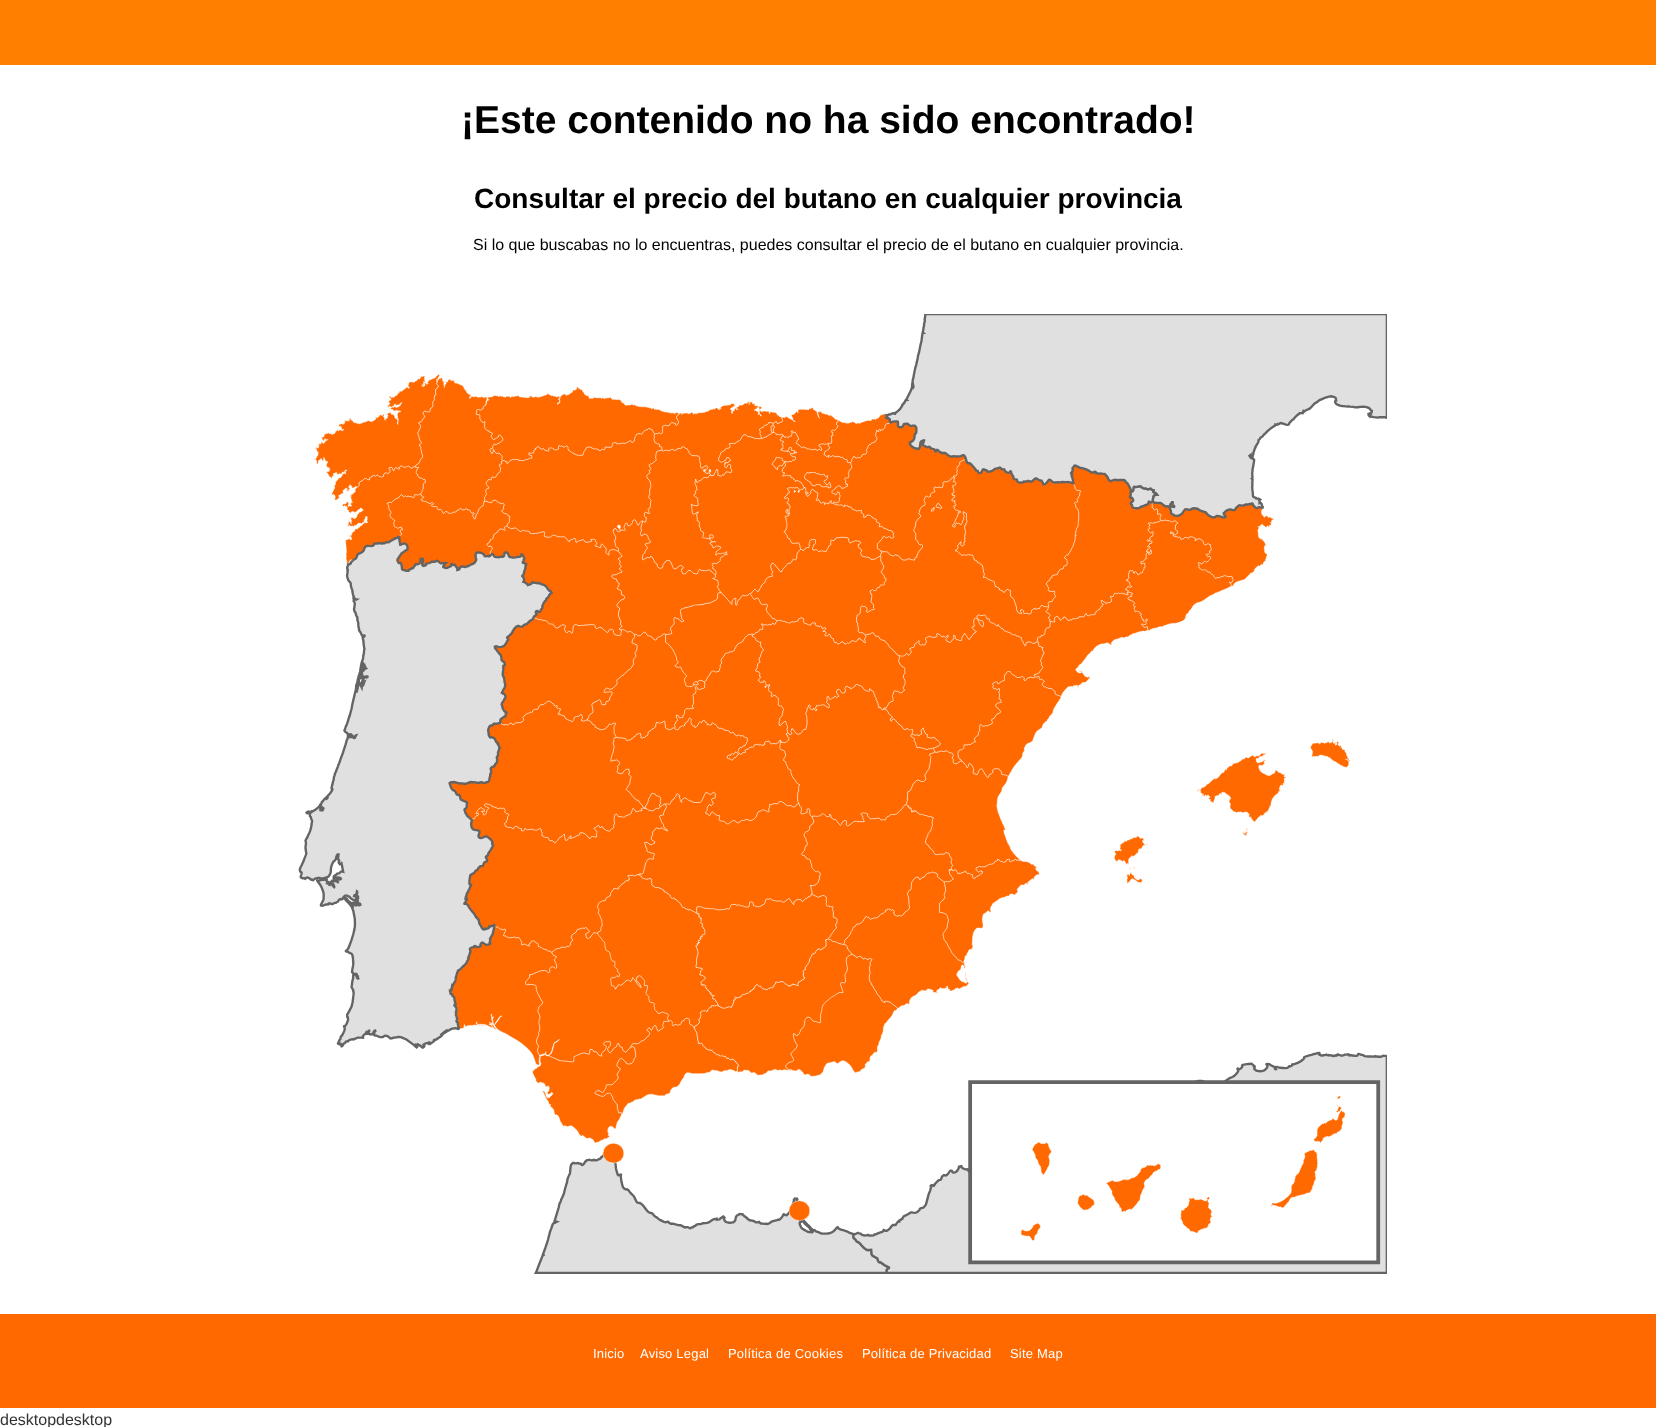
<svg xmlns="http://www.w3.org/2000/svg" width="1656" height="1427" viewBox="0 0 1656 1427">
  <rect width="100%" height="100%" fill="#ffffff"/>
  <rect x="0" y="0" width="1656" height="65" fill="#ff8000"/>
  <text x="461" y="133" font-family="Liberation Sans" font-size="39" font-weight="bold" fill="#000000">¡Este contenido no ha sido encontrado!</text>
  <text x="474" y="208" font-family="Liberation Sans" font-size="28" font-weight="bold" fill="#000000">Consultar el precio del butano en cualquier provincia</text>
  <text x="473" y="250" font-family="Liberation Sans" font-size="16" fill="#000000">Si lo que buscabas no lo encuentras, puedes consultar el precio de el butano en cualquier provincia.</text>
  <image x="298" y="314" width="1089" height="960" href="img1.png"/>
  <rect x="0" y="1314" width="1656" height="94" fill="#ff6900"/>
  <text x="593" y="1358" font-family="Liberation Sans" font-size="13" letter-spacing="0.2" fill="#ffffff">Inicio</text>
  <text x="640" y="1358" font-family="Liberation Sans" font-size="13" letter-spacing="0.2" fill="#ffffff">Aviso Legal</text>
  <text x="728" y="1358" font-family="Liberation Sans" font-size="13" letter-spacing="0.2" fill="#ffffff">Política de Cookies</text>
  <text x="862" y="1358" font-family="Liberation Sans" font-size="13" letter-spacing="0.2" fill="#ffffff">Política de Privacidad</text>
  <text x="1010" y="1358" font-family="Liberation Sans" font-size="13" letter-spacing="0.2" fill="#ffffff">Site Map</text>
  <text x="0" y="1425" font-family="Liberation Sans" font-size="16" fill="#333333">desktopdesktop</text>
</svg>
